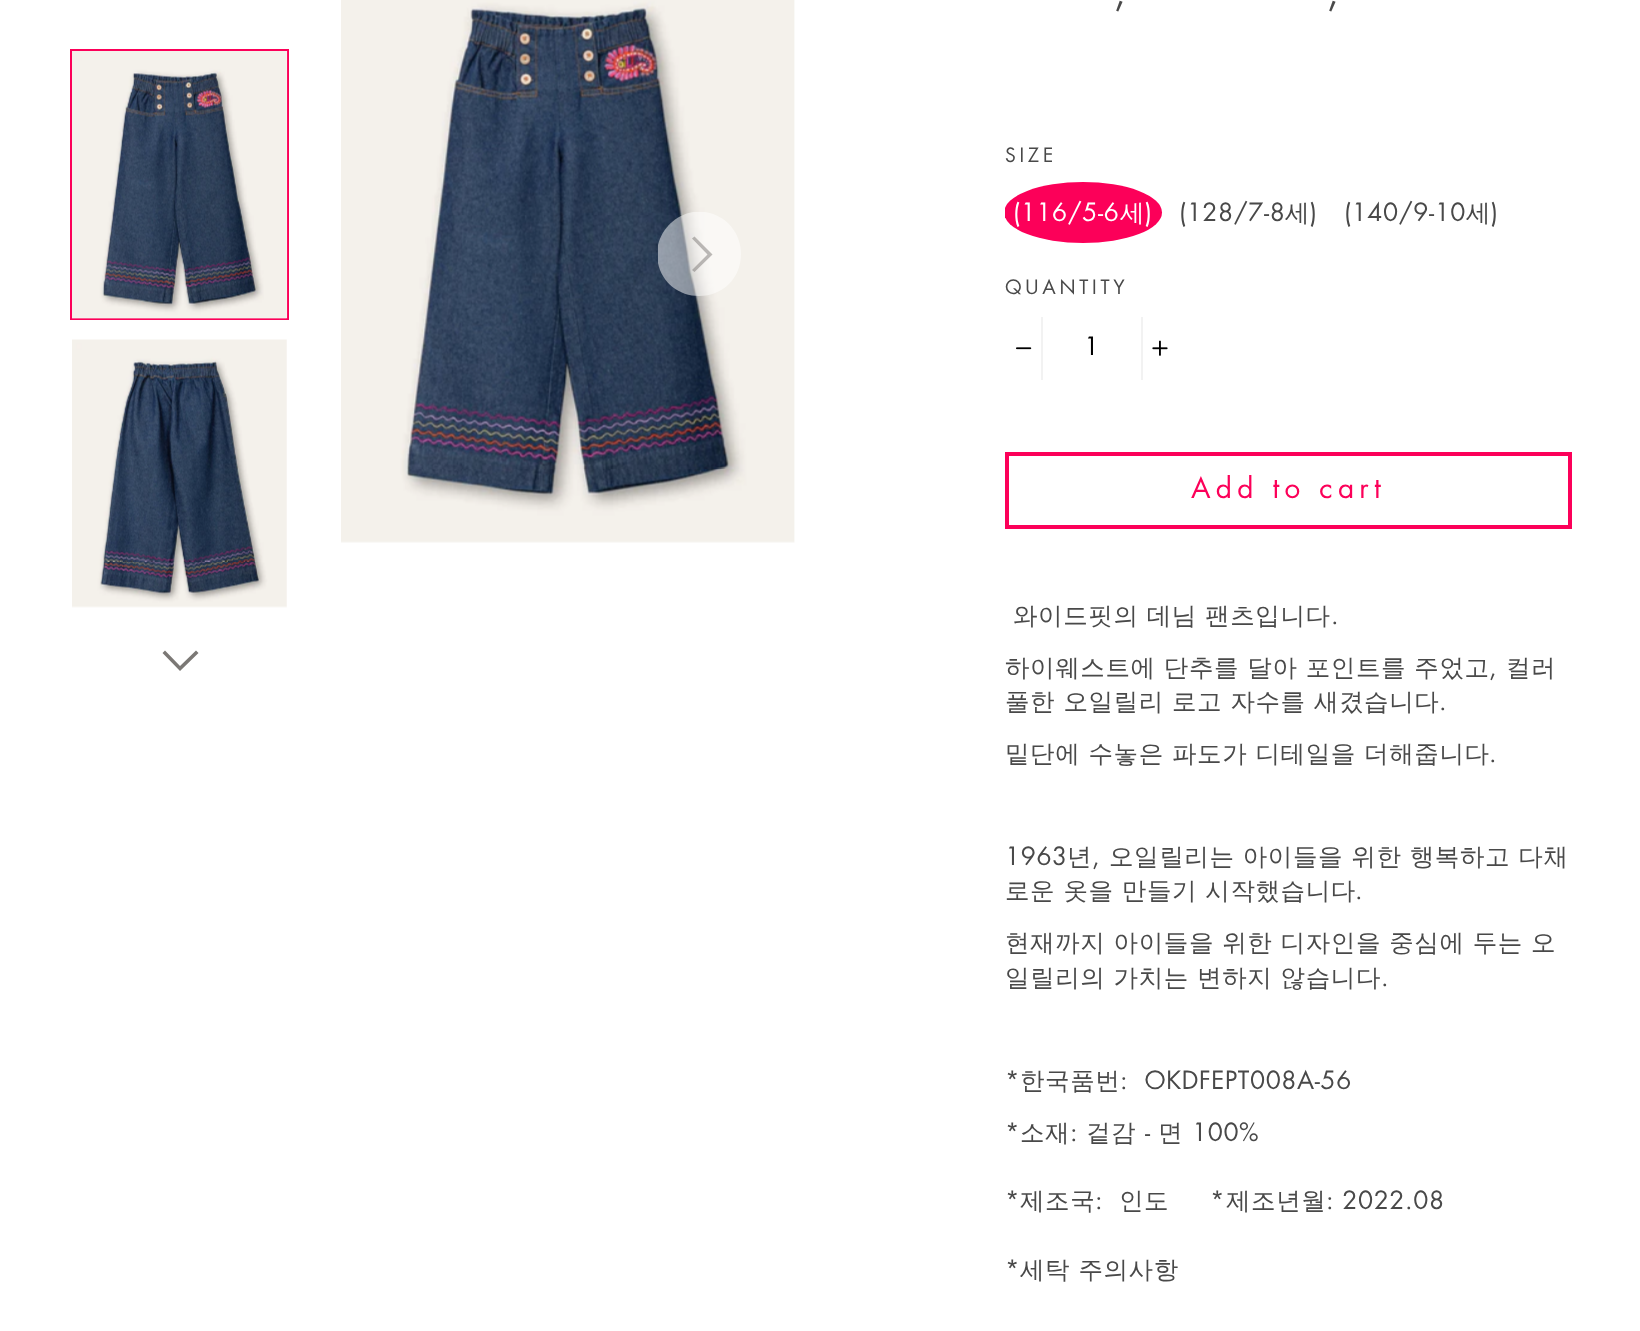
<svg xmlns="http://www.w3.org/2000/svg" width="1640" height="1331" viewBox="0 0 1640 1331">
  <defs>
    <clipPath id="clip1"><rect x="1005" y="182" width="567" height="70"/></clipPath>
  </defs>
  <rect width="100%" height="100%" fill="#ffffff"/>
  <rect x="71" y="50" width="217" height="269" fill="none" stroke="#fc0059" stroke-width="2"/>
  <image x="72" y="51" width="216" height="268" href="img1.png"/>
  <image x="72" y="339" width="215" height="269" href="img2.png"/>
  <path d="M162.5 653L165 650.5L180 666L196 650.5L198.5 653L180 671Z" fill="#7b7875"/>
  <image x="341" y="0" width="454" height="543" href="img3.png"/>
  <path d="M705 212C726 215 741 233 741 254C741 278 723 296 699 296C679 296 662 283 658 263V245C662 228 676 215 693 212Z" fill="#ffffff" fill-opacity="0.5"/>
  <path d="M694.5 272L692 270L707.5 254.5L692 238.5L694.5 236.5L712.5 254.5Z" fill="#7b7875" fill-opacity="0.5"/>
  <text x="1114" y="5" font-family="Futura" font-size="38" letter-spacing="0.6" fill="#494949">,</text>
  <text x="1327" y="5" font-family="Futura" font-size="38" letter-spacing="0.6" fill="#494949">,</text>
  <text x="1005" y="162" font-family="Futura" font-size="19.25" letter-spacing="3.75" fill="#494949">SIZE</text>
  <g clip-path="url(#clip1)">
    <ellipse cx="1083" cy="212.5" rx="79" ry="30.5" fill="#fc0059"/>
  </g>
  <text x="1013" y="221" font-family="Futura" font-size="24.5" letter-spacing="0.6" fill="#ffffff">(116/5-6</text>
  <text x="1120" y="221" font-family="WenQuanYi Zen Hei" font-size="24.5" font-weight="500" letter-spacing="0.6" fill="#ffffff">세</text>
  <text x="1145" y="221" font-family="Futura" font-size="24.5" letter-spacing="0.6" fill="#ffffff">)</text>
  <text x="1179" y="221" font-family="Futura" font-size="24.5" letter-spacing="0.6" fill="#494949">(128/7-8</text>
  <text x="1285" y="221" font-family="WenQuanYi Zen Hei" font-size="24.5" font-weight="500" letter-spacing="0.6" fill="#494949">세</text>
  <text x="1310" y="221" font-family="Futura" font-size="24.5" letter-spacing="0.6" fill="#494949">)</text>
  <text x="1344" y="221" font-family="Futura" font-size="24.5" letter-spacing="0.6" fill="#494949">(140/9-10</text>
  <text x="1466" y="221" font-family="WenQuanYi Zen Hei" font-size="24.5" font-weight="500" letter-spacing="0.6" fill="#494949">세</text>
  <text x="1491" y="221" font-family="Futura" font-size="24.5" letter-spacing="0.6" fill="#494949">)</text>
  <text x="1005" y="294" font-family="Futura" font-size="19.25" letter-spacing="3.75" fill="#494949">QUANTITY</text>
  <rect x="1041" y="317" width="2" height="63" fill="#f2f2f2"/>
  <image x="1016" y="347" width="16" height="3" href="img4.png"/>
  <text x="1084" y="355" font-family="Futura" font-size="24.5" letter-spacing="0.6" fill="#000000">1</text>
  <rect x="1141" y="317" width="2" height="63" fill="#f2f2f2"/>
  <image x="1152" y="340" width="16" height="16" href="img5.png"/>
  <rect x="1007" y="454" width="563" height="73" fill="none" stroke="#fc0059" stroke-width="4"/>
  <text x="1191" y="498" font-family="Futura" font-size="28" letter-spacing="5.25" fill="#fc0059">Add to cart</text>
  <text x="1013" y="624" word-spacing="0.25" font-family="WenQuanYi Zen Hei" font-size="24.5" font-weight="500" letter-spacing="0.6" fill="#494949">와이드핏의 데님 팬츠입니다</text>
  <text x="1331" y="624" font-family="Futura" font-size="24.5" letter-spacing="0.6" fill="#494949">.</text>
  <text x="1005" y="676" word-spacing="0.25" font-family="WenQuanYi Zen Hei" font-size="24.5" font-weight="500" letter-spacing="0.6" fill="#494949">하이웨스트에 단추를 달아 포인트를 주었고</text>
  <text x="1489" y="676" font-family="Futura" font-size="24.5" letter-spacing="0.6" fill="#494949">,</text>
  <text x="1506" y="676" font-family="WenQuanYi Zen Hei" font-size="24.5" font-weight="500" letter-spacing="0.6" fill="#494949">컬러</text>
  <text x="1005" y="710" word-spacing="0.25" font-family="WenQuanYi Zen Hei" font-size="24.5" font-weight="500" letter-spacing="0.6" fill="#494949">풀한 오일릴리 로고 자수를 새겼습니다</text>
  <text x="1439" y="710" font-family="Futura" font-size="24.5" letter-spacing="0.6" fill="#494949">.</text>
  <text x="1005" y="762" word-spacing="0.25" font-family="WenQuanYi Zen Hei" font-size="24.5" font-weight="500" letter-spacing="0.6" fill="#494949">밑단에 수놓은 파도가 디테일을 더해줍니다</text>
  <text x="1489" y="762" font-family="Futura" font-size="24.5" letter-spacing="0.6" fill="#494949">.</text>
  <text x="1005" y="865" font-family="Futura" font-size="24.5" letter-spacing="0.6" fill="#494949">1963</text>
  <text x="1067" y="865" font-family="WenQuanYi Zen Hei" font-size="24.5" font-weight="500" letter-spacing="0.6" fill="#494949">년</text>
  <text x="1092" y="865" font-family="Futura" font-size="24.5" letter-spacing="0.6" fill="#494949">,</text>
  <text x="1109" y="865" word-spacing="0.25" font-family="WenQuanYi Zen Hei" font-size="24.5" font-weight="500" letter-spacing="0.6" fill="#494949">오일릴리는 아이들을 위한 행복하고 다채</text>
  <text x="1005" y="899" word-spacing="0.25" font-family="WenQuanYi Zen Hei" font-size="24.5" font-weight="500" letter-spacing="0.6" fill="#494949">로운 옷을 만들기 시작했습니다</text>
  <text x="1355" y="899" font-family="Futura" font-size="24.5" letter-spacing="0.6" fill="#494949">.</text>
  <text x="1005" y="951" word-spacing="0.25" font-family="WenQuanYi Zen Hei" font-size="24.5" font-weight="500" letter-spacing="0.6" fill="#494949">현재까지 아이들을 위한 디자인을 중심에 두는 오</text>
  <text x="1005" y="986" word-spacing="0.25" font-family="WenQuanYi Zen Hei" font-size="24.5" font-weight="500" letter-spacing="0.6" fill="#494949">일릴리의 가치는 변하지 않습니다</text>
  <text x="1381" y="986" font-family="Futura" font-size="24.5" letter-spacing="0.6" fill="#494949">.</text>
  <text x="1005" y="1089" font-family="Futura" font-size="24.5" letter-spacing="0.6" fill="#494949">*</text>
  <text x="1020" y="1089" font-family="WenQuanYi Zen Hei" font-size="24.5" font-weight="500" letter-spacing="0.6" fill="#494949">한국품번</text>
  <text x="1120" y="1089" font-family="Futura" font-size="24.5" letter-spacing="0.6" fill="#494949" xml:space="preserve">:  OKDFEPT008A-56</text>
  <text x="1005" y="1141" font-family="Futura" font-size="24.5" letter-spacing="0.6" fill="#494949">*</text>
  <text x="1020" y="1141" font-family="WenQuanYi Zen Hei" font-size="24.5" font-weight="500" letter-spacing="0.6" fill="#494949">소재</text>
  <text x="1070" y="1141" font-family="Futura" font-size="24.5" letter-spacing="0.6" fill="#494949">:</text>
  <text x="1086" y="1141" font-family="WenQuanYi Zen Hei" font-size="24.5" font-weight="500" letter-spacing="0.6" fill="#494949">겉감</text>
  <text x="1145" y="1141" font-family="Futura" font-size="24.5" letter-spacing="0.6" fill="#494949">-</text>
  <text x="1158" y="1141" font-family="WenQuanYi Zen Hei" font-size="24.5" font-weight="500" letter-spacing="0.6" fill="#494949">면</text>
  <text x="1192" y="1141" font-family="Futura" font-size="24.5" letter-spacing="0.6" fill="#494949">100%</text>
  <text x="1005" y="1209" font-family="Futura" font-size="24.5" letter-spacing="0.6" fill="#494949">*</text>
  <text x="1020" y="1209" font-family="WenQuanYi Zen Hei" font-size="24.5" font-weight="500" letter-spacing="0.6" fill="#494949">제조국</text>
  <text x="1095" y="1209" font-family="Futura" font-size="24.5" letter-spacing="0.6" fill="#494949">:</text>
  <text x="1119" y="1209" font-family="WenQuanYi Zen Hei" font-size="24.5" font-weight="500" letter-spacing="0.6" fill="#494949">인도</text>
  <text x="1210" y="1209" font-family="Futura" font-size="24.5" letter-spacing="0.6" fill="#494949">*</text>
  <text x="1226" y="1209" font-family="WenQuanYi Zen Hei" font-size="24.5" font-weight="500" letter-spacing="0.6" fill="#494949">제조년월</text>
  <text x="1326" y="1209" font-family="Futura" font-size="24.5" letter-spacing="0.6" fill="#494949">: 2022.08</text>
  <text x="1005" y="1278" font-family="Futura" font-size="24.5" letter-spacing="0.6" fill="#494949">*</text>
  <text x="1020" y="1278" word-spacing="0.25" font-family="WenQuanYi Zen Hei" font-size="24.5" font-weight="500" letter-spacing="0.6" fill="#494949">세탁 주의사항</text>
</svg>
